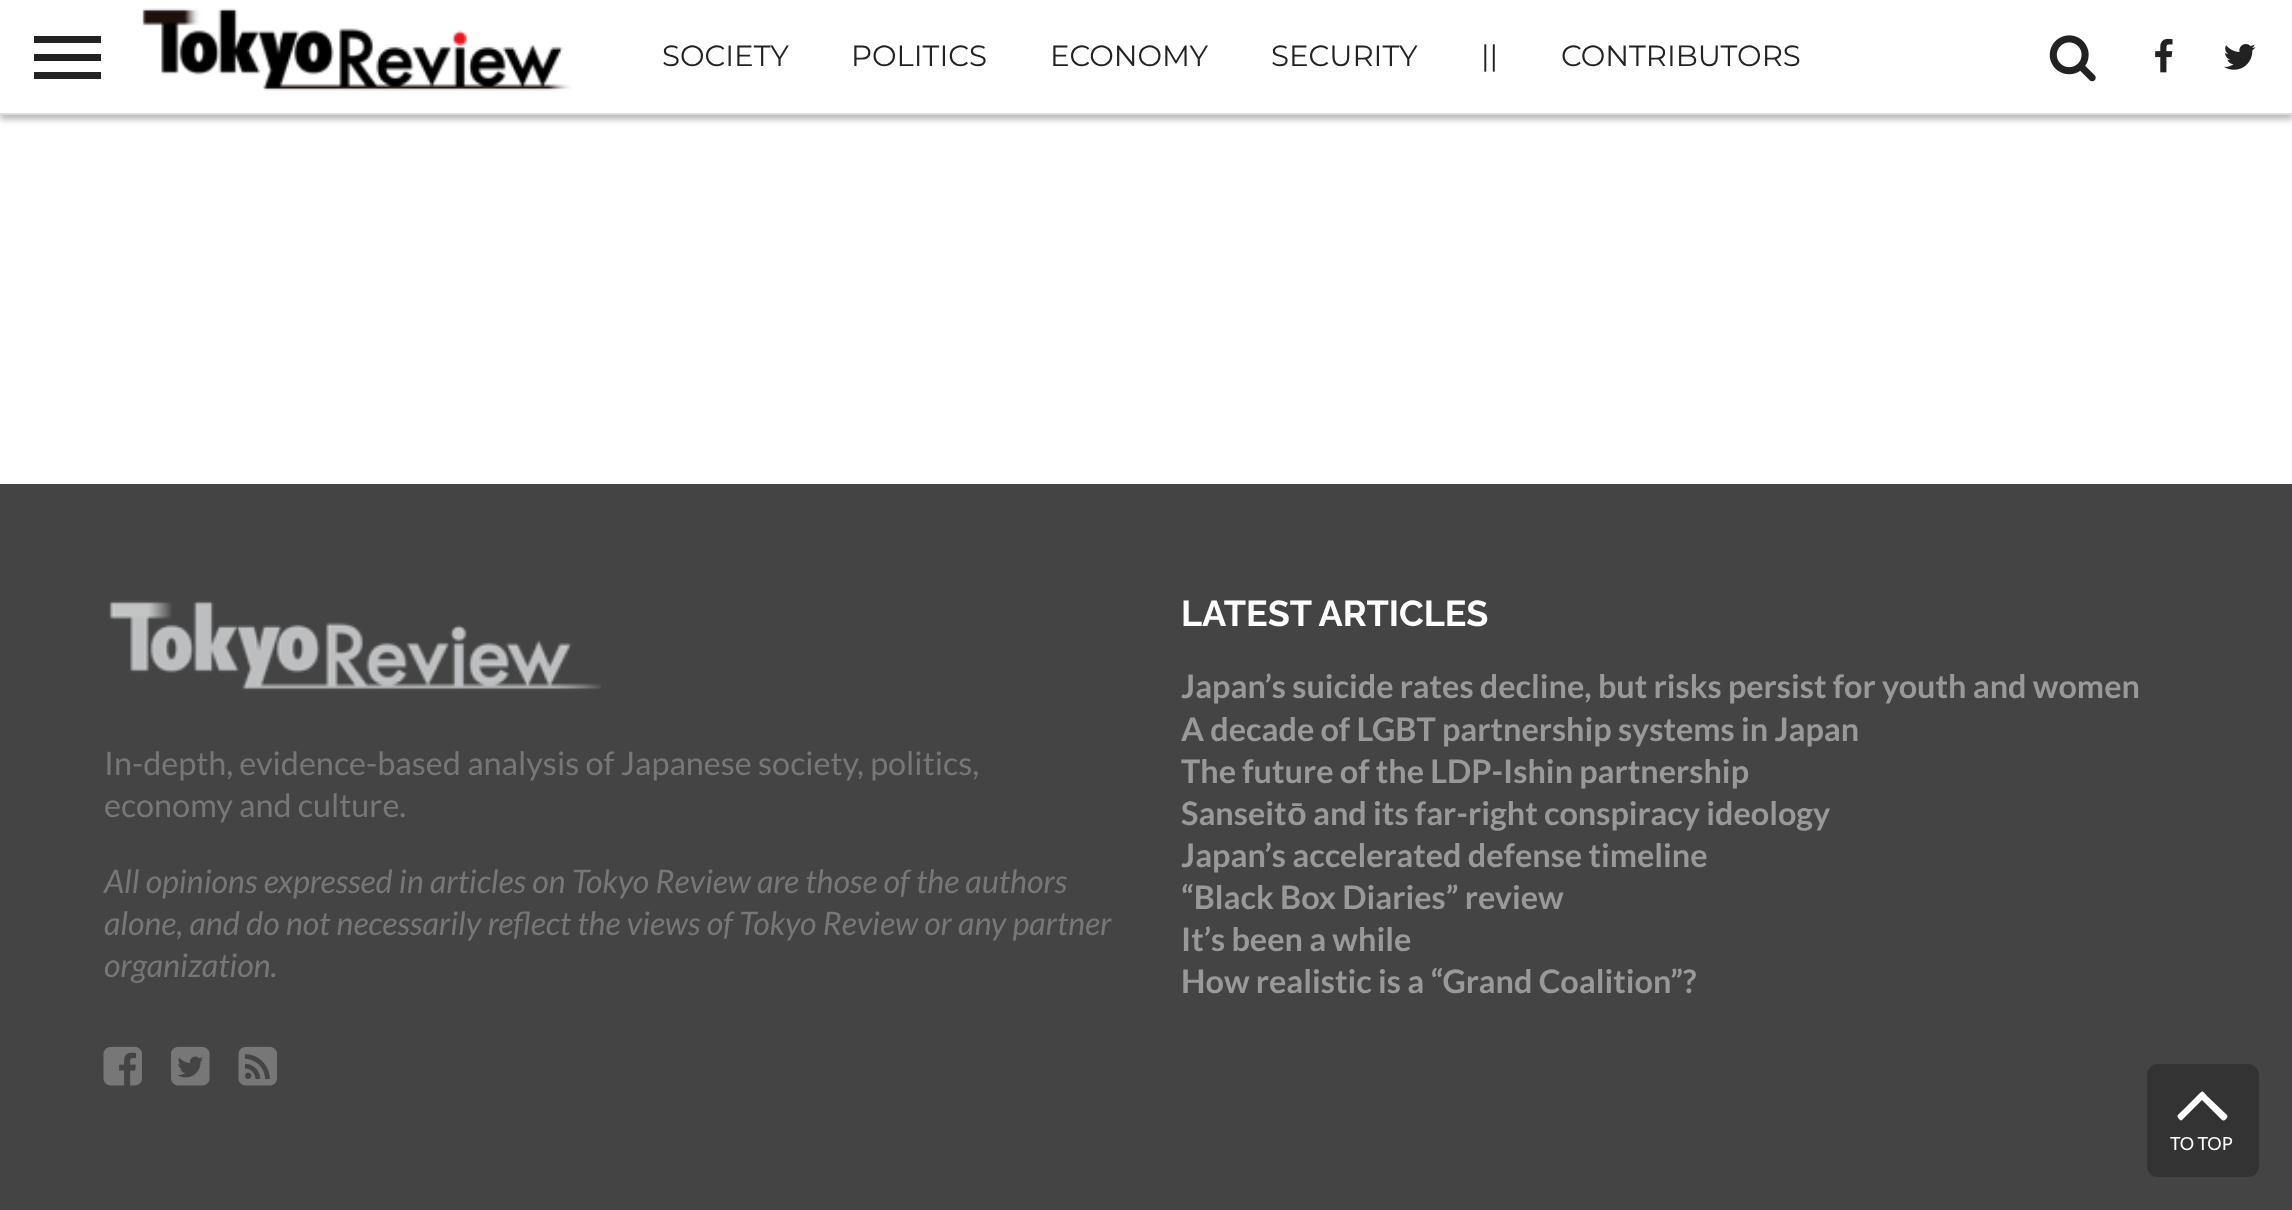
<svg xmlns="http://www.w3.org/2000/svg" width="2292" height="1210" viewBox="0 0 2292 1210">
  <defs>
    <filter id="blur1" x="-50%" y="-200%" width="200%" height="500%"><feGaussianBlur stdDeviation="3.5"/></filter>
  </defs>
  <rect width="100%" height="100%" fill="#ffffff"/>
  <rect x="0" y="5" width="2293" height="114" fill="#000000" fill-opacity="0.3" filter="url(#blur1)"/>
  <rect x="0" y="0" width="2292" height="113" fill="#ffffff"/>
  <rect x="0" y="113" width="2292" height="2" fill="#dddddd"/>
  <rect x="34" y="36" width="67" height="7" fill="#222222"/>
  <rect x="34" y="54" width="67" height="7" fill="#222222"/>
  <rect x="34" y="72" width="67" height="7" fill="#222222"/>
  <image x="142" y="8" width="430" height="83" href="img1.png"/>
  <text x="662" y="66" font-family="Montserrat" font-size="29.25" fill="#222222">SOCIETY</text>
  <text x="851" y="66" font-family="Montserrat" font-size="29.25" fill="#222222">POLITICS</text>
  <text x="1050" y="66" font-family="Montserrat" font-size="29.25" fill="#222222">ECONOMY</text>
  <text x="1271" y="66" font-family="Montserrat" font-size="29.25" fill="#222222">SECURITY</text>
  <text x="1481" y="66" font-family="Montserrat" font-size="29.25" fill="#222222">||</text>
  <text x="1561" y="66" font-family="Montserrat" font-size="29.25" fill="#222222">CONTRIBUTORS</text>
  <image x="2049" y="35" width="47" height="47" href="img2.png"/>
  <image x="2155" y="38" width="18" height="35" href="img3.png"/>
  <image x="2224" y="44" width="32" height="26" href="img4.png"/>
  <rect x="0" y="484" width="2292" height="726" fill="#444444"/>
  <image x="109" y="600" width="492" height="91" href="img5.png"/>
  <text x="104" y="775" font-family="Lato" font-size="32.4" fill="#777777">In-depth, evidence-based analysis of Japanese society, politics,</text>
  <text x="104" y="817" font-family="Lato" font-size="32.4" fill="#777777">economy and culture.</text>
  <text x="104" y="893" font-family="Lato" font-size="32.4" font-style="italic" fill="#777777">All opinions expressed in articles on Tokyo Review are those of the authors</text>
  <text x="104" y="935" font-family="Lato" font-size="32.4" font-style="italic" fill="#777777">alone, and do not necessarily reflect the views of Tokyo Review or any partner</text>
  <text x="104" y="977" font-family="Lato" font-size="32.4" font-style="italic" fill="#777777">organization.</text>
  <image x="103" y="1046" width="39" height="40" href="img6.png"/>
  <image x="171" y="1046" width="39" height="40" href="img7.png"/>
  <image x="238" y="1046" width="39" height="40" href="img8.png"/>
  <text x="1181" y="626" font-family="Raleway" font-size="36" font-weight="bold" fill="#ffffff">LATEST ARTICLES</text>
  <text x="1181" y="698" font-family="Lato" font-size="32.4" font-weight="bold" fill="#999999">Japan’s suicide rates decline, but risks persist for youth and women</text>
  <text x="1181" y="741" font-family="Lato" font-size="32.4" font-weight="bold" fill="#999999">A decade of LGBT partnership systems in Japan</text>
  <text x="1181" y="783" font-family="Lato" font-size="32.4" font-weight="bold" fill="#999999">The future of the LDP-Ishin partnership</text>
  <text x="1181" y="825" font-family="Lato" font-size="32.4" font-weight="bold" fill="#999999">Sanseit</text>
  <text x="1287" y="825" font-family="Liberation Sans" font-size="32.4" font-weight="bold" fill="#999999">ō</text>
  <text x="1313" y="825" font-family="Lato" font-size="32.4" font-weight="bold" fill="#999999">and its far-right conspiracy ideology</text>
  <text x="1181" y="867" font-family="Lato" font-size="32.4" font-weight="bold" fill="#999999">Japan’s accelerated defense timeline</text>
  <text x="1181" y="909" font-family="Lato" font-size="32.4" font-weight="bold" fill="#999999">“Black Box Diaries” review</text>
  <text x="1181" y="951" font-family="Lato" font-size="32.4" font-weight="bold" fill="#999999">It’s been a while</text>
  <text x="1181" y="993" font-family="Lato" font-size="32.4" font-weight="bold" fill="#999999">How realistic is a “Grand Coalition”?</text>
  <rect x="2147" y="1064" width="112" height="113" rx="11" fill="#333333"/>
  <path d="M2227 1115C2228 1117 2227 1118 2226 1119C2223 1122 2222 1120 2219 1117L2202 1100L2182 1120C2181 1121 2180 1120 2179 1119C2176 1115 2178 1115 2182 1111L2197 1096C2203 1090 2202 1090 2207 1096Z" fill="#ffffff"/>
  <text x="2170" y="1150" font-family="Lato" font-size="18" fill="#ffffff">TO TOP</text>
</svg>
